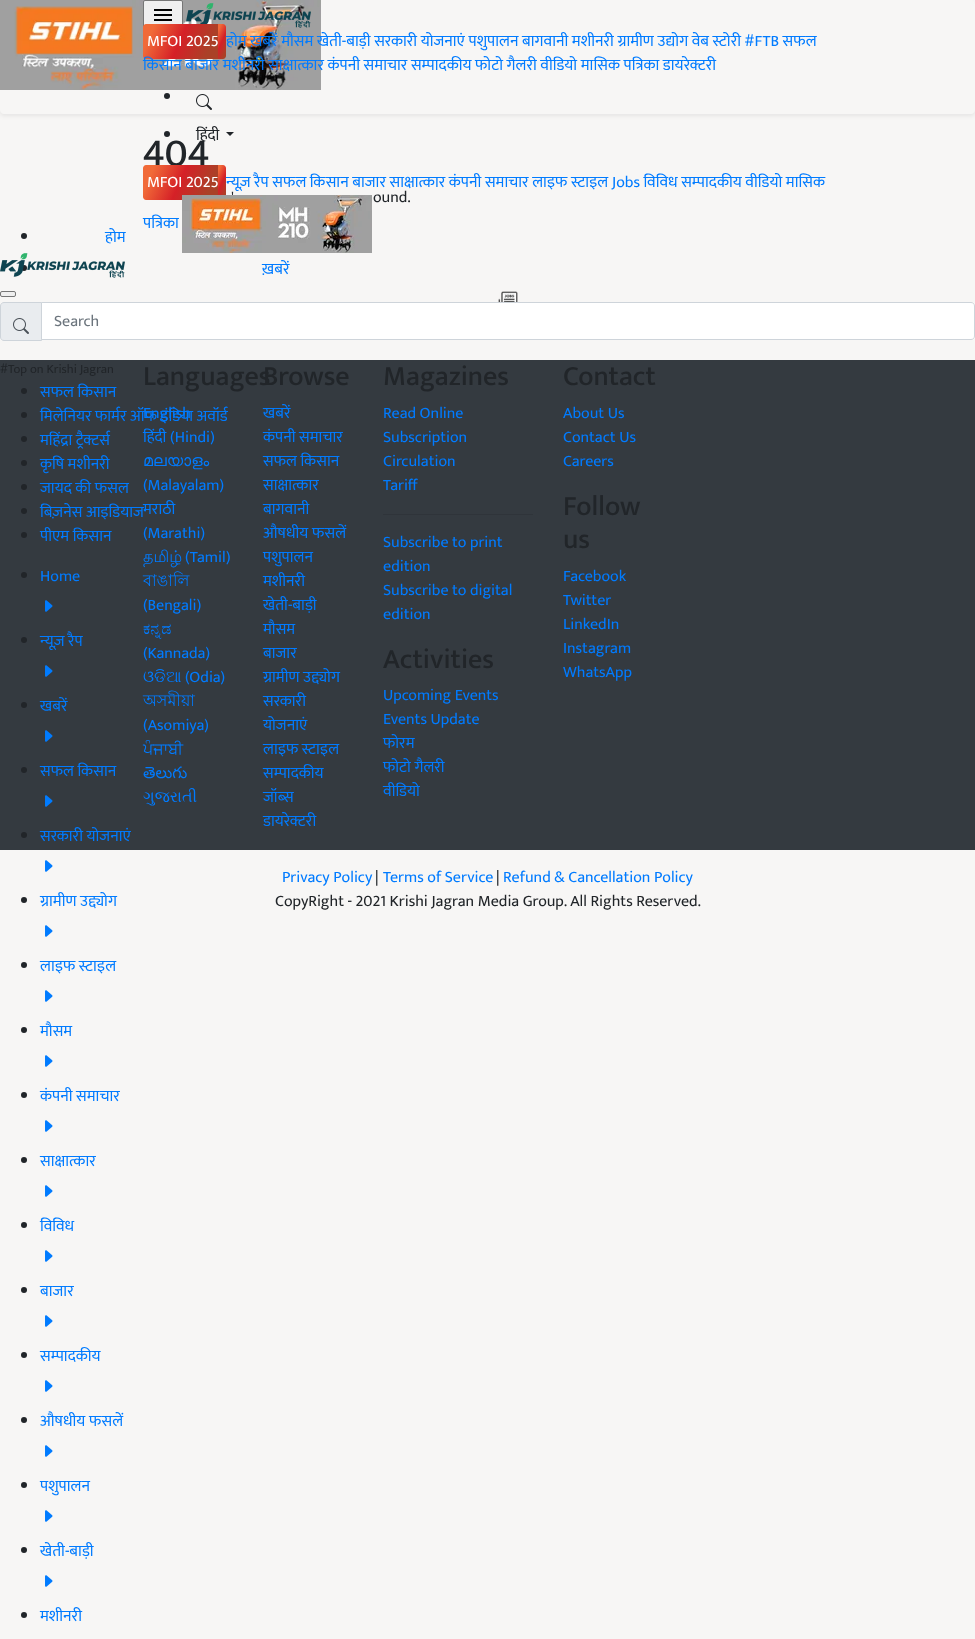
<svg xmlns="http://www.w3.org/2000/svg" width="975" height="1639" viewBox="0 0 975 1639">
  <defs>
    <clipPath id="clip1"><path d="M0 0H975V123H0ZM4 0H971C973 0 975 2 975 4V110C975 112 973 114 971 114H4C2 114 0 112 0 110V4C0 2 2 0 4 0Z" clip-rule="evenodd"/></clipPath>
    <filter id="blur1" x="-50%" y="-200%" width="200%" height="500%"><feGaussianBlur stdDeviation="2"/></filter>
    <linearGradient id="g1" gradientUnits="userSpaceOnUse" x1="143" y1="25" x2="218" y2="58"><stop offset="0.13" stop-color="#f16a38"/><stop offset="0.49" stop-color="#d52027"/><stop offset="0.86" stop-color="#aa4127"/></linearGradient>
    <linearGradient id="g2" gradientUnits="userSpaceOnUse" x1="212" y1="37" x2="232" y2="46"><stop offset="0.13" stop-color="#f16a38"/><stop offset="0.49" stop-color="#d52027"/><stop offset="0.86" stop-color="#aa4127"/></linearGradient>
    <linearGradient id="g3" gradientUnits="userSpaceOnUse" x1="143" y1="166" x2="218" y2="199"><stop offset="0.13" stop-color="#f16a38"/><stop offset="0.49" stop-color="#d52027"/><stop offset="0.86" stop-color="#aa4127"/></linearGradient>
    <linearGradient id="g4" gradientUnits="userSpaceOnUse" x1="212" y1="178" x2="232" y2="187"><stop offset="0.13" stop-color="#f16a38"/><stop offset="0.49" stop-color="#d52027"/><stop offset="0.86" stop-color="#aa4127"/></linearGradient>
  </defs>
  <rect width="100%" height="100%" fill="#f7f6f5"/>
  <g clip-path="url(#clip1)">
    <rect x="0" y="2" width="975" height="114" rx="4" fill="#000000" fill-opacity="0.07" filter="url(#blur1)"/>
  </g>
  <image x="0" y="0" width="321" height="90" href="img1.png"/>
  <rect x="143.5" y="0.5" width="39" height="29" rx="1.5" fill="#efefef" stroke="#767676"/>
  <image x="154" y="9" width="18" height="12" href="img2.png"/>
  <image x="186" y="3" width="125" height="25" href="img3.png"/>
  <path d="M146 24H218V59H146C144.5 59 143 57.5 143 56V27C143 25.5 144.5 24 146 24Z" fill="url(#g1)"/>
  <text x="147" y="46" font-family="Mukta" font-size="16" fill="#ffffff">MFOI 2025</text>
  <path d="M218 24H223C224.5 24 226 25.5 226 27V56C226 57.5 224.5 59 223 59H218Z" fill="url(#g2)"/>
  <text x="226" y="46" font-family="Mukta" font-size="16" fill="#007bff">होम ख़बरें मौसम खेती-बाड़ी सरकारी योजनाएं पशुपालन बागवानी मशीनरी ग्रामीण उद्योग वेब स्टोरी #FTB सफल</text>
  <text x="143" y="70" font-family="Mukta" font-size="16" fill="#007bff">किसान बाजार मशीनरी साक्षात्कार कंपनी समाचार सम्पादकीय फोटो गैलरी वीडियो मासिक पत्रिका डायरेक्टरी</text>
  <circle cx="167" cy="96" r="3" fill="#212529"/>
  <image x="196" y="94" width="16" height="16" href="img4.png"/>
  <circle cx="167" cy="134" r="3" fill="#212529"/>
  <text x="196" y="140" font-family="Mukta" font-size="16" fill="#212529">हिंदी</text>
  <path d="M226 132H234L230 136Z" fill="#212529"/>
  <text x="143" y="166" font-family="Mukta" font-size="40" font-weight="500" fill="#212529">404</text>
  <path d="M146 165H218V200H146C144.5 200 143 198.5 143 197V168C143 166.5 144.5 165 146 165Z" fill="url(#g3)"/>
  <text x="147" y="187" font-family="Mukta" font-size="16" fill="#ffffff">MFOI 2025</text>
  <path d="M218 165H223C224.5 165 226 166.5 226 168V197C226 198.5 224.5 200 223 200H218Z" fill="url(#g4)"/>
  <text x="226" y="187" font-family="Mukta" font-size="16" fill="#007bff">न्यूज़ रैप सफल किसान बाजार साक्षात्कार कंपनी समाचार लाइफ स्टाइल Jobs विविध सम्पादकीय वीडियो मासिक</text>
  <text x="143" y="228" font-family="Mukta" font-size="16" fill="#007bff">पत्रिका</text>
  <text x="231" y="202" font-family="Mukta" font-size="16" fill="#212529">'</text>
  <image x="182" y="195" width="190" height="58" href="img5.png"/>
  <circle cx="24" cy="268" r="3" fill="#212529"/>
  <image x="0" y="253" width="125" height="25" href="img6.png"/>
  <rect x="0.5" y="291.5" width="15" height="5" rx="1.5" fill="#efefef" stroke="#767676"/>
  <path d="M4 302.5H41.5V340.5H4C2 340.5 .5 339 .5 337V306C.5 304 2 302.5 4 302.5Z" fill="#e9ecef" stroke="#ced4da"/>
  <image x="13" y="318" width="16" height="16" href="img7.png"/>
  <path d="M41.5 302.5H971C973 302.5 974.5 304 974.5 306V336C974.5 338 973 339.5 971 339.5H41.5Z" fill="#ffffff" stroke="#ced4da"/>
  <text x="54" y="326" font-family="Mukta" font-size="16" fill="#6c757d">Search</text>
  <rect x="0" y="360" width="975" height="490" fill="#343a40"/>
  <text x="0" y="373" font-family="Mukta" font-size="12.75" fill="#212529">#Top on Krishi Jagran</text>
  <circle cx="24" cy="391" r="3" fill="#212529"/>
  <text x="40" y="397" font-family="Mukta" font-size="16" fill="#007bff">सफल किसान</text>
  <circle cx="24" cy="415" r="3" fill="#212529"/>
  <text x="143" y="418" font-family="Mukta" font-size="16" fill="#007bff">English</text>
  <text x="40" y="421" font-family="Mukta" font-size="16" fill="#007bff">मिलेनियर फार्मर ऑफ इंडिया अवॉर्ड</text>
  <circle cx="24" cy="439" r="3" fill="#212529"/>
  <text x="40" y="445" font-family="Mukta" font-size="16" fill="#007bff">महिंद्रा ट्रैक्टर्स</text>
  <circle cx="24" cy="463" r="3" fill="#212529"/>
  <text x="40" y="469" font-family="Mukta" font-size="16" fill="#007bff">कृषि मशीनरी</text>
  <circle cx="24" cy="487" r="3" fill="#212529"/>
  <text x="40" y="493" font-family="Mukta" font-size="16" fill="#007bff">जायद की फसल</text>
  <circle cx="24" cy="511" r="3" fill="#212529"/>
  <text x="143" y="514" font-family="Mukta" font-size="16" fill="#007bff">मराठी</text>
  <text x="40" y="517" font-family="Mukta" font-size="16" fill="#007bff">बिज़नेस आइडियाज</text>
  <circle cx="24" cy="535" r="3" fill="#212529"/>
  <text x="40" y="541" font-family="Mukta" font-size="16" fill="#007bff">पीएम किसान</text>
  <circle cx="24" cy="575" r="3" fill="#212529"/>
  <text x="40" y="581" font-family="Mukta" font-size="16" fill="#007bff">Home</text>
  <image x="45" y="600" width="8" height="12" href="img8.png"/>
  <circle cx="24" cy="640" r="3" fill="#212529"/>
  <text x="40" y="646" font-family="Mukta" font-size="16" fill="#007bff">न्यूज़ रैप</text>
  <image x="45" y="665" width="8" height="12" href="img8.png"/>
  <circle cx="24" cy="705" r="3" fill="#212529"/>
  <text x="40" y="711" font-family="Mukta" font-size="16" fill="#007bff">खबरें</text>
  <image x="45" y="730" width="8" height="12" href="img8.png"/>
  <circle cx="24" cy="770" r="3" fill="#212529"/>
  <text x="40" y="776" font-family="Mukta" font-size="16" fill="#007bff">सफल किसान</text>
  <image x="45" y="795" width="8" height="12" href="img8.png"/>
  <circle cx="24" cy="835" r="3" fill="#212529"/>
  <text x="40" y="841" font-family="Mukta" font-size="16" fill="#007bff">सरकारी योजनाएं</text>
  <image x="45" y="860" width="8" height="12" href="img9.png"/>
  <circle cx="24" cy="900" r="3" fill="#212529"/>
  <text x="40" y="906" font-family="Mukta" font-size="16" fill="#007bff">ग्रामीण उद्द्योग</text>
  <image x="45" y="925" width="8" height="12" href="img9.png"/>
  <circle cx="24" cy="965" r="3" fill="#212529"/>
  <text x="40" y="971" font-family="Mukta" font-size="16" fill="#007bff">लाइफ स्टाइल</text>
  <image x="45" y="990" width="8" height="12" href="img9.png"/>
  <circle cx="24" cy="1030" r="3" fill="#212529"/>
  <text x="40" y="1036" font-family="Mukta" font-size="16" fill="#007bff">मौसम</text>
  <image x="45" y="1055" width="8" height="12" href="img9.png"/>
  <circle cx="24" cy="1095" r="3" fill="#212529"/>
  <text x="40" y="1101" font-family="Mukta" font-size="16" fill="#007bff">कंपनी समाचार</text>
  <image x="45" y="1120" width="8" height="12" href="img9.png"/>
  <circle cx="24" cy="1160" r="3" fill="#212529"/>
  <text x="40" y="1166" font-family="Mukta" font-size="16" fill="#007bff">साक्षात्कार</text>
  <image x="45" y="1185" width="8" height="12" href="img9.png"/>
  <circle cx="24" cy="1225" r="3" fill="#212529"/>
  <text x="40" y="1231" font-family="Mukta" font-size="16" fill="#007bff">विविध</text>
  <image x="45" y="1250" width="8" height="12" href="img9.png"/>
  <circle cx="24" cy="1290" r="3" fill="#212529"/>
  <text x="40" y="1296" font-family="Mukta" font-size="16" fill="#007bff">बाजार</text>
  <image x="45" y="1315" width="8" height="12" href="img9.png"/>
  <circle cx="24" cy="1355" r="3" fill="#212529"/>
  <text x="40" y="1361" font-family="Mukta" font-size="16" fill="#007bff">सम्पादकीय</text>
  <image x="45" y="1380" width="8" height="12" href="img9.png"/>
  <circle cx="24" cy="1420" r="3" fill="#212529"/>
  <text x="40" y="1426" font-family="Mukta" font-size="16" fill="#007bff">औषधीय फसलें</text>
  <image x="45" y="1445" width="8" height="12" href="img9.png"/>
  <circle cx="24" cy="1485" r="3" fill="#212529"/>
  <text x="40" y="1491" font-family="Mukta" font-size="16" fill="#007bff">पशुपालन</text>
  <image x="45" y="1510" width="8" height="12" href="img9.png"/>
  <circle cx="24" cy="1550" r="3" fill="#212529"/>
  <text x="40" y="1556" font-family="Mukta" font-size="16" fill="#007bff">खेती-बाड़ी</text>
  <image x="45" y="1575" width="8" height="12" href="img9.png"/>
  <circle cx="24" cy="1615" r="3" fill="#212529"/>
  <text x="40" y="1621" font-family="Mukta" font-size="16" fill="#007bff">मशीनरी</text>
  <text x="373" y="202" font-family="Mukta" font-size="16" fill="#212529">ound.</text>
  <circle cx="24" cy="236" r="3" fill="#212529"/>
  <text x="105" y="242" font-family="Mukta" font-size="16" fill="#007bff">होम</text>
  <text x="262" y="274" font-family="Mukta" font-size="16" fill="#007bff">ख़बरें</text>
  <image x="498" y="291" width="20" height="11" href="img10.png"/>
  <text x="143" y="385" font-family="Mukta" font-size="28" font-weight="500" fill="#212529">Languages</text>
  <text x="143" y="442" font-family="Mukta" font-size="16" fill="#007bff">हिंदी (Hindi)</text>
  <text x="143" y="466" font-family="FreeSans" font-size="16" fill="#007bff">മലയാളം</text>
  <text x="143" y="490" font-family="Mukta" font-size="16" fill="#007bff">(Malayalam)</text>
  <text x="143" y="538" font-family="Mukta" font-size="16" fill="#007bff">(Marathi)</text>
  <text x="143" y="562" font-family="Lohit Tamil" font-size="16" fill="#007bff">தமிழ்</text>
  <text x="185" y="562" font-family="Mukta" font-size="16" fill="#007bff">(Tamil)</text>
  <text x="143" y="586" font-family="Lohit Bengali" font-size="16" fill="#007bff">বাঙালি</text>
  <text x="143" y="610" font-family="Mukta" font-size="16" fill="#007bff">(Bengali)</text>
  <text x="143" y="634" font-family="FreeSerif" font-size="16" fill="#007bff">ಕನ್ನಡ</text>
  <text x="143" y="658" font-family="Mukta" font-size="16" fill="#007bff">(Kannada)</text>
  <text x="143" y="682" font-family="FreeSerif" font-size="16" fill="#007bff">ଓଡିଆ</text>
  <text x="185" y="682" font-family="Mukta" font-size="16" fill="#007bff">(Odia)</text>
  <text x="143" y="706" font-family="Lohit Bengali" font-size="16" fill="#007bff">অসমীয়া</text>
  <text x="143" y="730" font-family="Mukta" font-size="16" fill="#007bff">(Asomiya)</text>
  <text x="143" y="754" font-family="FreeSans" font-size="16" fill="#007bff">ਪੰਜਾਬੀ</text>
  <text x="143" y="778" font-family="Noto Sans Telugu" font-size="16" fill="#007bff">తెలుగు</text>
  <text x="143" y="802" font-family="FreeSerif" font-size="16" fill="#007bff">ગુજરાતી</text>
  <text x="263" y="385" font-family="Mukta" font-size="28" font-weight="500" fill="#212529">Browse</text>
  <text x="263" y="418" font-family="Mukta" font-size="16" fill="#007bff">खबरें</text>
  <text x="263" y="442" font-family="Mukta" font-size="16" fill="#007bff">कंपनी समाचार</text>
  <text x="263" y="466" font-family="Mukta" font-size="16" fill="#007bff">सफल किसान</text>
  <text x="263" y="490" font-family="Mukta" font-size="16" fill="#007bff">साक्षात्कार</text>
  <text x="263" y="514" font-family="Mukta" font-size="16" fill="#007bff">बागवानी</text>
  <text x="263" y="538" font-family="Mukta" font-size="16" fill="#007bff">औषधीय फसलें</text>
  <text x="263" y="562" font-family="Mukta" font-size="16" fill="#007bff">पशुपालन</text>
  <text x="263" y="586" font-family="Mukta" font-size="16" fill="#007bff">मशीनरी</text>
  <text x="263" y="610" font-family="Mukta" font-size="16" fill="#007bff">खेती-बाड़ी</text>
  <text x="263" y="634" font-family="Mukta" font-size="16" fill="#007bff">मौसम</text>
  <text x="263" y="658" font-family="Mukta" font-size="16" fill="#007bff">बाजार</text>
  <text x="263" y="682" font-family="Mukta" font-size="16" fill="#007bff">ग्रामीण उद्द्योग</text>
  <text x="263" y="706" font-family="Mukta" font-size="16" fill="#007bff">सरकारी</text>
  <text x="263" y="730" font-family="Mukta" font-size="16" fill="#007bff">योजनाएं</text>
  <text x="263" y="754" font-family="Mukta" font-size="16" fill="#007bff">लाइफ स्टाइल</text>
  <text x="263" y="778" font-family="Mukta" font-size="16" fill="#007bff">सम्पादकीय</text>
  <text x="263" y="802" font-family="Mukta" font-size="16" fill="#007bff">जॉब्स</text>
  <text x="263" y="826" font-family="Mukta" font-size="16" fill="#007bff">डायरेक्टरी</text>
  <text x="383" y="385" font-family="Mukta" font-size="28" font-weight="500" fill="#212529">Magazines</text>
  <text x="383" y="418" font-family="Mukta" font-size="16" fill="#007bff">Read Online</text>
  <text x="383" y="442" font-family="Mukta" font-size="16" fill="#007bff">Subscription</text>
  <text x="383" y="466" font-family="Mukta" font-size="16" fill="#007bff">Circulation</text>
  <text x="383" y="490" font-family="Mukta" font-size="16" fill="#007bff">Tariff</text>
  <rect x="383" y="514" width="150" height="1" fill="#2f343a"/>
  <text x="383" y="547" font-family="Mukta" font-size="16" fill="#007bff">Subscribe to print</text>
  <text x="383" y="571" font-family="Mukta" font-size="16" fill="#007bff">edition</text>
  <text x="383" y="595" font-family="Mukta" font-size="16" fill="#007bff">Subscribe to digital</text>
  <text x="383" y="619" font-family="Mukta" font-size="16" fill="#007bff">edition</text>
  <text x="383" y="668" font-family="Mukta" font-size="28" font-weight="500" fill="#212529">Activities</text>
  <text x="383" y="700" font-family="Mukta" font-size="16" fill="#007bff">Upcoming Events</text>
  <text x="383" y="724" font-family="Mukta" font-size="16" fill="#007bff">Events Update</text>
  <text x="383" y="748" font-family="Mukta" font-size="16" fill="#007bff">फोरम</text>
  <text x="383" y="772" font-family="Mukta" font-size="16" fill="#007bff">फोटो गैलरी</text>
  <text x="383" y="796" font-family="Mukta" font-size="16" fill="#007bff">वीडियो</text>
  <text x="563" y="385" font-family="Mukta" font-size="28" font-weight="500" fill="#212529">Contact</text>
  <text x="563" y="418" font-family="Mukta" font-size="16" fill="#007bff">About Us</text>
  <text x="563" y="442" font-family="Mukta" font-size="16" fill="#007bff">Contact Us</text>
  <text x="563" y="466" font-family="Mukta" font-size="16" fill="#007bff">Careers</text>
  <text x="563" y="515" font-family="Mukta" font-size="28" font-weight="500" fill="#212529">Follow</text>
  <text x="563" y="548" font-family="Mukta" font-size="28" font-weight="500" fill="#212529">us</text>
  <text x="563" y="581" font-family="Mukta" font-size="16" fill="#007bff">Facebook</text>
  <text x="563" y="605" font-family="Mukta" font-size="16" fill="#007bff">Twitter</text>
  <text x="563" y="629" font-family="Mukta" font-size="16" fill="#007bff">LinkedIn</text>
  <text x="563" y="653" font-family="Mukta" font-size="16" fill="#007bff">Instagram</text>
  <text x="563" y="677" font-family="Mukta" font-size="16" fill="#007bff">WhatsApp</text>
  <text x="282" y="882" font-family="Mukta" font-size="16" fill="#007bff">Privacy Policy</text>
  <text x="375" y="882" font-family="Mukta" font-size="16" fill="#212529">|</text>
  <text x="383" y="882" font-family="Mukta" font-size="16" fill="#007bff">Terms of Service</text>
  <text x="496" y="882" font-family="Mukta" font-size="16" fill="#212529">|</text>
  <text x="503" y="882" font-family="Mukta" font-size="16" fill="#007bff">Refund &amp; Cancellation Policy</text>
  <text x="275" y="906" font-family="Mukta" font-size="16" fill="#212529">CopyRight - 2021 Krishi Jagran Media Group. All Rights Reserved.</text>
</svg>
